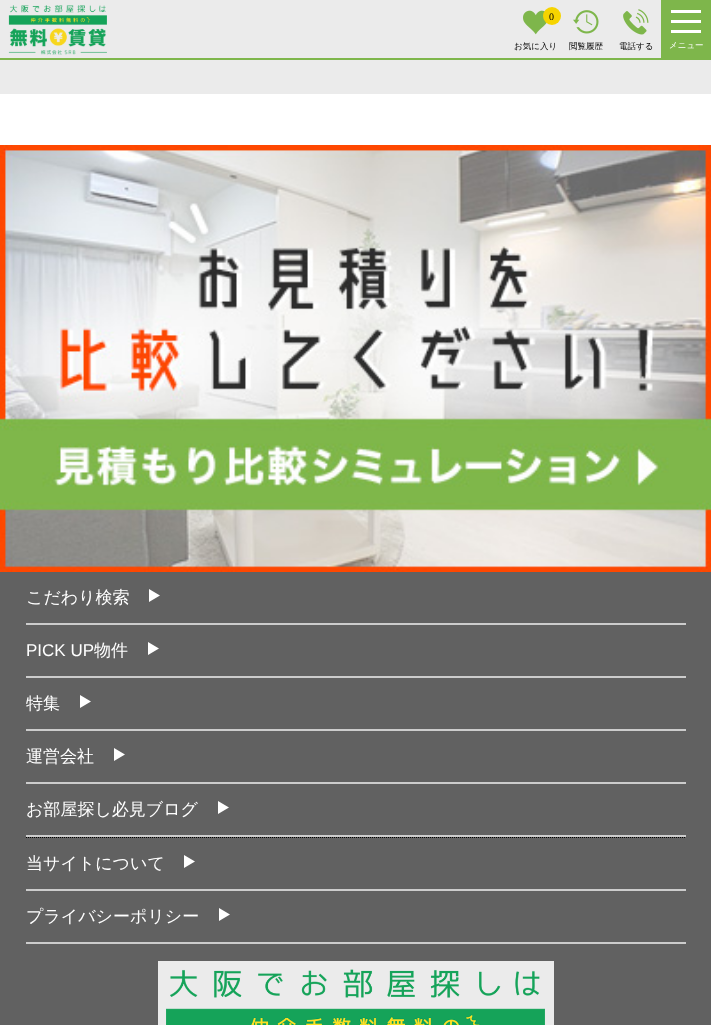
<svg xmlns="http://www.w3.org/2000/svg" width="711" height="1025" viewBox="0 0 711 1025">
  <rect width="100%" height="100%" fill="#ffffff"/>
  <rect x="0" y="0" width="661" height="58" fill="#ebebeb"/>
  <rect x="0" y="58" width="661" height="2" fill="#7eb64b"/>
  <image x="8" y="5" width="99" height="50" href="img1.png"/>
  <image x="523" y="10" width="24" height="25" href="img2.png"/>
  <circle cx="552" cy="16" r="9" fill="#f6d400"/>
  <text x="549" y="20" font-family="Liberation Serif" font-size="10" fill="#000000">0</text>
  <text x="514" y="49" font-family="WenQuanYi Zen Hei" font-size="8.5" font-weight="500" fill="#000000">お気に入り</text>
  <image x="573" y="10" width="26" height="24" href="img3.png"/>
  <text x="569" y="49" font-family="WenQuanYi Zen Hei" font-size="8.5" font-weight="500" fill="#000000">閲覧履歴</text>
  <image x="623" y="9" width="26" height="26" href="img4.png"/>
  <text x="619" y="49" font-family="WenQuanYi Zen Hei" font-size="8.5" font-weight="500" fill="#000000">電話する</text>
  <rect x="661" y="0" width="50" height="60" fill="#7eb64b"/>
  <rect x="671" y="10" width="30" height="3" fill="#ffffff"/>
  <rect x="671" y="20" width="30" height="3" fill="#ffffff"/>
  <rect x="671" y="30" width="30" height="3" fill="#ffffff"/>
  <text x="669" y="48" font-family="WenQuanYi Zen Hei" font-size="8.5" font-weight="500" fill="#ffffff">メニュー</text>
  <rect x="0" y="60" width="711" height="34" fill="#ebebeb"/>
  <image x="0" y="145" width="711" height="427" href="img5.png"/>
  <rect x="0" y="572" width="711" height="453" fill="#616161"/>
  <path d="M26 837.5H686" fill="none" stroke="#000000" stroke-dasharray="1 1"/>
  <rect x="26" y="623" width="660" height="2" fill="#cccccc"/>
  <text x="26" y="603" font-family="WenQuanYi Zen Hei" font-size="17" font-weight="500" fill="#ffffff">こだわり検索</text>
  <path d="M149 589L160 595.5L149 602Z" fill="#ffffff"/>
  <rect x="26" y="676" width="660" height="2" fill="#cccccc"/>
  <text x="26" y="656" font-family="Liberation Sans" font-size="17" fill="#ffffff">PICK UP</text>
  <text x="94" y="656" font-family="WenQuanYi Zen Hei" font-size="17" font-weight="500" fill="#ffffff">物件</text>
  <path d="M148 642L159 648.5L148 655Z" fill="#ffffff"/>
  <rect x="26" y="729" width="660" height="2" fill="#cccccc"/>
  <text x="26" y="709" font-family="WenQuanYi Zen Hei" font-size="17" font-weight="500" fill="#ffffff">特集</text>
  <path d="M80 695L91 701.5L80 708Z" fill="#ffffff"/>
  <rect x="26" y="782" width="660" height="2" fill="#cccccc"/>
  <text x="26" y="762" font-family="WenQuanYi Zen Hei" font-size="17" font-weight="500" fill="#ffffff">運営会社</text>
  <path d="M114 748L125 754.5L114 761Z" fill="#ffffff"/>
  <rect x="26" y="835" width="660" height="2" fill="#cccccc"/>
  <text x="26" y="815" font-family="WenQuanYi Zen Hei" font-size="17" font-weight="500" fill="#ffffff">お部屋探し必見ブログ</text>
  <path d="M218 801L229 807.5L218 814Z" fill="#ffffff"/>
  <rect x="26" y="889" width="660" height="2" fill="#cccccc"/>
  <text x="26" y="869" font-family="WenQuanYi Zen Hei" font-size="17" font-weight="500" fill="#ffffff">当サイトについて</text>
  <path d="M184 855L195 861.5L184 868Z" fill="#ffffff"/>
  <rect x="26" y="942" width="660" height="2" fill="#cccccc"/>
  <text x="26" y="922" font-family="WenQuanYi Zen Hei" font-size="17" font-weight="500" fill="#ffffff">プライバシーポリシー</text>
  <path d="M219 908L230 914.5L219 921Z" fill="#ffffff"/>
  <rect x="158" y="961" width="396" height="64" fill="#ebebeb"/>
  <image x="166" y="969" width="379" height="56" href="img6.png"/>
</svg>
